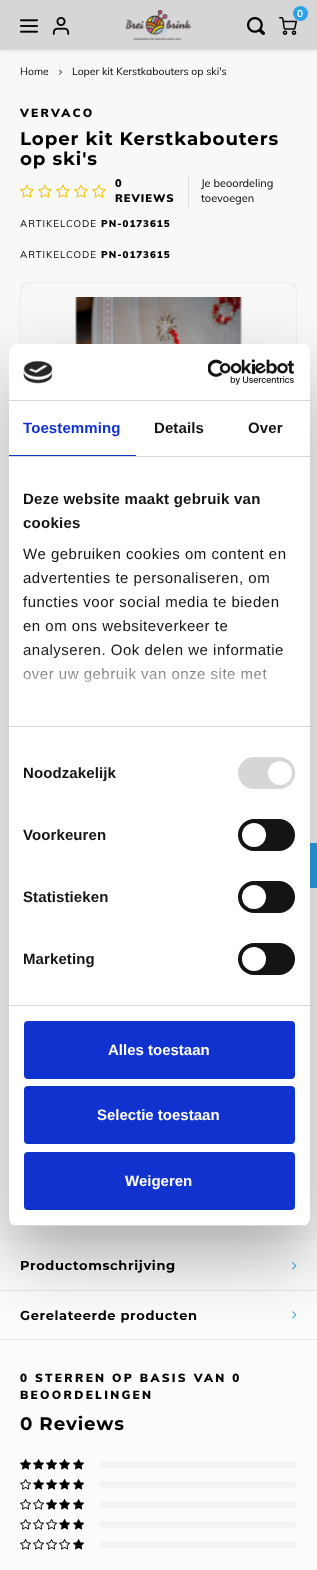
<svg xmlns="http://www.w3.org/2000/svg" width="317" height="1570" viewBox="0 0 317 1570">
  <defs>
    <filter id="blur1" x="-50%" y="-200%" width="200%" height="500%"><feGaussianBlur stdDeviation="2"/></filter>
    <filter id="blur2" x="-50%" y="-200%" width="200%" height="500%"><feGaussianBlur stdDeviation="34"/></filter>
    <linearGradient id="g1" gradientUnits="userSpaceOnUse" x1="153" y1="726" x2="153" y2="651"><stop offset="0" stop-color="#ffffff"/><stop offset="0.5" stop-color="#ffffff" stop-opacity="0.8"/><stop offset="1" stop-color="#ffffff" stop-opacity="0"/></linearGradient>
    <clipPath id="clip1"><rect x="9" y="344" width="301" height="882" rx="8"/></clipPath>
  </defs>
  <rect width="100%" height="100%" fill="#fcfcfc"/>
  <rect x="0" y="50" width="317" height="1191" fill="#f8f8f8"/>
  <rect x="0" y="1" width="317" height="50" fill="#000000" fill-opacity="0.08" filter="url(#blur1)"/>
  <rect x="0" y="0" width="317" height="50" fill="#d6d6d6"/>
  <image x="20" y="19" width="18" height="14" href="img1.png"/>
  <image x="52" y="17" width="18" height="18" href="img2.png"/>
  <image x="125" y="10" width="67" height="30" href="img3.png"/>
  <image x="279" y="17" width="18" height="18" href="img4.png"/>
  <circle cx="300.5" cy="13.5" r="7.5" fill="#2ba2ea"/>
  <text x="297" y="17" font-family="Muli" font-size="10" font-weight="bold" fill="#ffffff">0</text>
  <image x="247" y="17" width="18" height="18" href="img5.png"/>
  <text x="20" y="75" font-family="Muli" font-size="10.4" fill="#000000">Home</text>
  <image x="59" y="69" width="3" height="6" href="img6.png"/>
  <text x="72" y="75" font-family="Muli" font-size="10.4" fill="#000000">Loper kit Kerstkabouters op ski's</text>
  <text x="20" y="117" font-family="Muli" font-size="11.75" font-weight="900" letter-spacing="2.3" fill="#000000">VERVACO</text>
  <text x="20" y="145" font-family="Montserrat" font-size="18.25" font-weight="bold" letter-spacing="0.9" fill="#000000">Loper kit Kerstkabouters</text>
  <text x="20" y="165" font-family="Montserrat" font-size="18.25" font-weight="bold" letter-spacing="0.9" fill="#000000">op ski's</text>
  <image x="20" y="184" width="14" height="14" href="img7.png"/>
  <image x="38" y="184" width="14" height="14" href="img7.png"/>
  <image x="56" y="184" width="14" height="14" href="img7.png"/>
  <image x="74" y="184" width="14" height="14" href="img7.png"/>
  <image x="92" y="184" width="14" height="14" href="img7.png"/>
  <rect x="188" y="176" width="1" height="31" fill="#dddddd"/>
  <text x="115" y="187" font-family="Muli" font-size="11" font-weight="900" letter-spacing="1" fill="#000000">0</text>
  <text x="115" y="202" font-family="Muli" font-size="11" font-weight="900" letter-spacing="1" fill="#000000">REVIEWS</text>
  <text x="201" y="187" font-family="Muli" font-size="11" fill="#000000">Je beoordeling</text>
  <text x="201" y="202" font-family="Muli" font-size="11" fill="#000000">toevoegen</text>
  <text x="20" y="227" font-family="Muli" font-size="9.75" letter-spacing="1" fill="#000000">ARTIKELCODE</text>
  <text x="101" y="227" font-family="Muli" font-size="9.75" font-weight="900" letter-spacing="1" fill="#000000">PN-0173615</text>
  <text x="20" y="258" font-family="Muli" font-size="9.75" letter-spacing="1" fill="#000000">ARTIKELCODE</text>
  <text x="101" y="258" font-family="Muli" font-size="9.75" font-weight="900" letter-spacing="1" fill="#000000">PN-0173615</text>
  <rect x="20" y="282" width="277" height="277" rx="10" fill="#ffffff"/>
  <rect x="20.5" y="282.5" width="276" height="276" rx="9.5" fill="none" stroke="#000000" stroke-opacity="0.07"/>
  <image x="75" y="297" width="168" height="47" href="img8.png"/>
  <rect x="21" y="283" width="275" height="61" fill="#000000" fill-opacity="0.03"/>
  <rect x="310" y="843" width="7" height="45" fill="#2ba2ea"/>
  <rect x="0" y="1290" width="317" height="1" fill="#eaeaea"/>
  <text x="20" y="1270" font-family="Montserrat" font-size="13" font-weight="bold" letter-spacing="0.65" fill="#000000">Productomschrijving</text>
  <image x="292" y="1262" width="5" height="8" href="img9.png"/>
  <rect x="0" y="1339" width="317" height="1" fill="#eaeaea"/>
  <text x="20" y="1320" font-family="Montserrat" font-size="13" font-weight="bold" letter-spacing="0.65" fill="#000000">Gerelateerde producten</text>
  <image x="292" y="1311" width="5" height="8" href="img9.png"/>
  <text x="20" y="1382" font-family="Muli" font-size="11.75" font-weight="900" letter-spacing="2.3" fill="#000000">0 STERREN OP BASIS VAN 0</text>
  <text x="20" y="1399" font-family="Muli" font-size="11.75" font-weight="900" letter-spacing="2.3" fill="#000000">BEOORDELINGEN</text>
  <text x="20" y="1430" font-family="Montserrat" font-size="18.25" font-weight="bold" letter-spacing="0.9" fill="#000000">0 Reviews</text>
  <image x="20" y="1459" width="12" height="11" href="img10.png"/>
  <image x="33" y="1459" width="12" height="11" href="img10.png"/>
  <image x="46" y="1459" width="12" height="11" href="img10.png"/>
  <image x="59" y="1459" width="12" height="11" href="img10.png"/>
  <image x="73" y="1459" width="12" height="11" href="img10.png"/>
  <rect x="99" y="1461" width="198" height="7" rx="3.5" fill="#f4f4f4"/>
  <image x="20" y="1479" width="12" height="11" href="img11.png"/>
  <image x="33" y="1479" width="12" height="11" href="img10.png"/>
  <image x="46" y="1479" width="12" height="11" href="img10.png"/>
  <image x="59" y="1479" width="12" height="11" href="img10.png"/>
  <image x="73" y="1479" width="12" height="11" href="img10.png"/>
  <rect x="99" y="1481" width="198" height="7" rx="3.5" fill="#f4f4f4"/>
  <image x="20" y="1499" width="12" height="11" href="img11.png"/>
  <image x="33" y="1499" width="12" height="11" href="img11.png"/>
  <image x="46" y="1499" width="12" height="11" href="img10.png"/>
  <image x="59" y="1499" width="12" height="11" href="img10.png"/>
  <image x="73" y="1499" width="12" height="11" href="img10.png"/>
  <rect x="99" y="1501" width="198" height="7" rx="3.5" fill="#f4f4f4"/>
  <image x="20" y="1519" width="12" height="11" href="img11.png"/>
  <image x="33" y="1519" width="12" height="11" href="img11.png"/>
  <image x="46" y="1519" width="12" height="11" href="img11.png"/>
  <image x="59" y="1519" width="12" height="11" href="img10.png"/>
  <image x="73" y="1519" width="12" height="11" href="img10.png"/>
  <rect x="99" y="1521" width="198" height="7" rx="3.5" fill="#f4f4f4"/>
  <image x="20" y="1539" width="12" height="11" href="img11.png"/>
  <image x="33" y="1539" width="12" height="11" href="img11.png"/>
  <image x="46" y="1539" width="12" height="11" href="img11.png"/>
  <image x="59" y="1539" width="12" height="11" href="img11.png"/>
  <image x="73" y="1539" width="12" height="11" href="img10.png"/>
  <rect x="99" y="1541" width="198" height="7" rx="3.5" fill="#f4f4f4"/>
  <rect x="9" y="376" width="301" height="882" rx="8" fill="#000000" fill-opacity="0.3" filter="url(#blur2)"/>
  <rect x="9" y="344" width="301" height="882" rx="8" fill="#ffffff"/>
  <rect x="9" y="400" width="301" height="1" fill="#d6d6d6"/>
  <image x="23" y="361" width="30" height="23" href="img12.png"/>
  <image x="208" y="359" width="86" height="26" href="img13.png"/>
  <rect x="9" y="456" width="301" height="1" fill="#d6d6d6"/>
  <rect x="9" y="455" width="127" height="1" fill="#1032cf"/>
  <text x="23" y="433" font-family="Liberation Sans" font-size="15" font-weight="bold" letter-spacing="0.1" fill="#1032cf">Toestemming</text>
  <text x="154" y="433" font-family="Liberation Sans" font-size="15" font-weight="bold" letter-spacing="0.1" fill="#141414">Details</text>
  <text x="248" y="433" font-family="Liberation Sans" font-size="15" font-weight="bold" letter-spacing="0.1" fill="#141414">Over</text>
  <rect x="9" y="726" width="301" height="1" fill="#d6d6d6"/>
  <text x="23" y="504" font-family="Liberation Sans" font-size="15" font-weight="bold" letter-spacing="0.25" fill="#141414">Deze website maakt gebruik van</text>
  <text x="23" y="528" font-family="Liberation Sans" font-size="15" font-weight="bold" letter-spacing="0.25" fill="#141414">cookies</text>
  <text x="23" y="559" font-family="Liberation Sans" font-size="15" letter-spacing="0.5" fill="#141414">We gebruiken cookies om content en</text>
  <text x="23" y="583" font-family="Liberation Sans" font-size="15" letter-spacing="0.5" fill="#141414">advertenties te personaliseren, om</text>
  <text x="23" y="607" font-family="Liberation Sans" font-size="15" letter-spacing="0.5" fill="#141414">functies voor social media te bieden</text>
  <text x="23" y="631" font-family="Liberation Sans" font-size="15" letter-spacing="0.5" fill="#141414">en om ons websiteverkeer te</text>
  <text x="23" y="655" font-family="Liberation Sans" font-size="15" letter-spacing="0.5" fill="#141414">analyseren. Ook delen we informatie</text>
  <text x="23" y="679" font-family="Liberation Sans" font-size="15" letter-spacing="0.5" fill="#141414">over uw gebruik van onze site met</text>
  <rect x="23" y="652" width="260" height="31" fill="url(#g1)"/>
  <rect x="9" y="1005" width="301" height="1" fill="#d6d6d6"/>
  <text x="23" y="778" font-family="Liberation Sans" font-size="15" font-weight="bold" letter-spacing="0.1" fill="#141414">Noodzakelijk</text>
  <rect x="238" y="757" width="57" height="32" rx="16" fill="#d6d6d6"/>
  <circle cx="280" cy="773" r="12" fill="#ffffff"/>
  <text x="23" y="840" font-family="Liberation Sans" font-size="15" font-weight="bold" letter-spacing="0.1" fill="#141414">Voorkeuren</text>
  <rect x="238" y="819" width="57" height="32" rx="16" fill="#141414"/>
  <circle cx="254" cy="835" r="12" fill="#ffffff"/>
  <text x="23" y="902" font-family="Liberation Sans" font-size="15" font-weight="bold" letter-spacing="0.1" fill="#141414">Statistieken</text>
  <rect x="238" y="881" width="57" height="32" rx="16" fill="#141414"/>
  <circle cx="254" cy="897" r="12" fill="#ffffff"/>
  <text x="23" y="964" font-family="Liberation Sans" font-size="15" font-weight="bold" letter-spacing="0.1" fill="#141414">Marketing</text>
  <rect x="238" y="943" width="57" height="32" rx="16" fill="#141414"/>
  <circle cx="254" cy="959" r="12" fill="#ffffff"/>
  <g clip-path="url(#clip1)">
    <rect x="9" y="1225" width="301" height="1" fill="#d6d6d6"/>
  </g>
  <rect x="25" y="1022" width="269" height="56" rx="3" fill="#1032cf" stroke="#1032cf" stroke-width="2"/>
  <text x="108" y="1055" font-family="Liberation Sans" font-size="15" font-weight="bold" fill="#ffffff">Alles toestaan</text>
  <rect x="25" y="1087" width="269" height="56" rx="3" fill="#1032cf" stroke="#1032cf" stroke-width="2"/>
  <text x="97" y="1120" font-family="Liberation Sans" font-size="15" font-weight="bold" fill="#ffffff">Selectie toestaan</text>
  <rect x="25" y="1153" width="269" height="56" rx="3" fill="#1032cf" stroke="#1032cf" stroke-width="2"/>
  <text x="125" y="1186" font-family="Liberation Sans" font-size="15" font-weight="bold" fill="#ffffff">Weigeren</text>
</svg>
